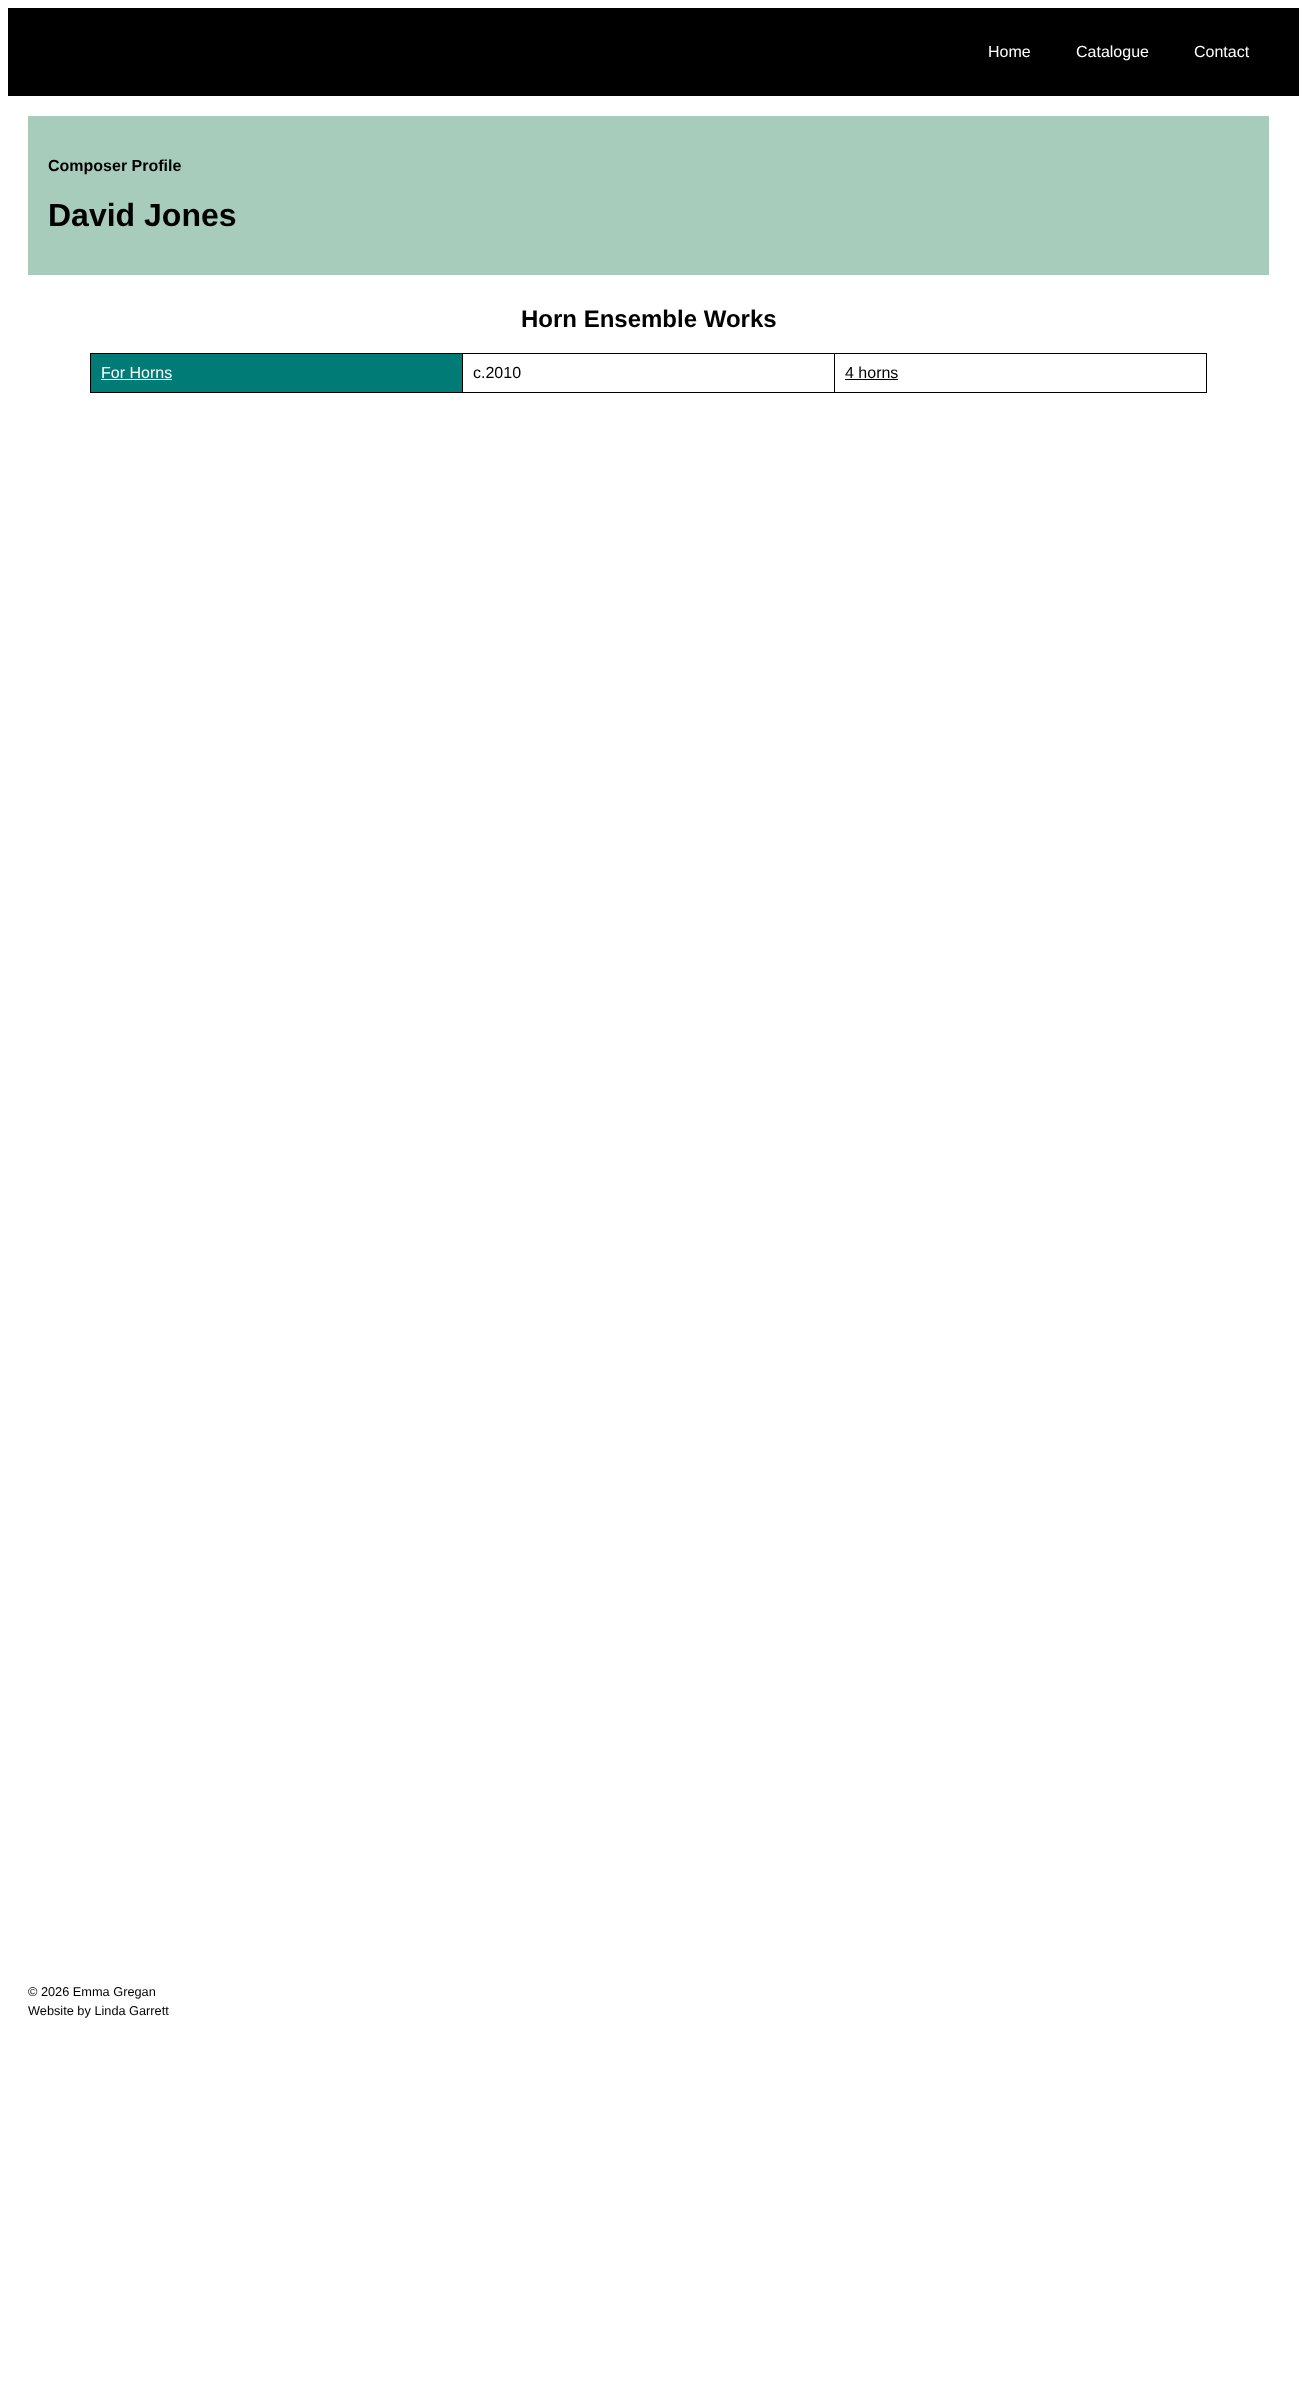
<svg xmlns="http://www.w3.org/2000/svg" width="1307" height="2403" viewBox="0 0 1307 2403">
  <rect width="100%" height="100%" fill="#ffffff"/>
  <rect x="8" y="8" width="1291" height="88" fill="#000000"/>
  <text x="988" y="57" font-family="Liberation Sans" font-size="16" fill="#ffffff">Home</text>
  <text x="1076" y="57" font-family="Liberation Sans" font-size="16" fill="#ffffff">Catalogue</text>
  <text x="1194" y="57" font-family="Liberation Sans" font-size="16" fill="#ffffff">Contact</text>
  <rect x="28" y="116" width="1241" height="159" fill="#a7ccbc"/>
  <text x="48" y="171" font-family="Liberation Sans" font-size="16" font-weight="bold" fill="#000000">Composer Profile</text>
  <text x="48" y="226" font-family="Liberation Sans" font-size="32" font-weight="bold" fill="#000000">David Jones</text>
  <text x="521" y="327" font-family="Liberation Sans" font-size="24" font-weight="bold" fill="#000000">Horn Ensemble Works</text>
  <rect x="90" y="353" width="1117" height="1" fill="#000000"/>
  <rect x="1206" y="353" width="1" height="40" fill="#000000"/>
  <rect x="90" y="392" width="1117" height="1" fill="#000000"/>
  <rect x="90" y="353" width="1" height="40" fill="#000000"/>
  <rect x="91" y="354" width="371" height="38" fill="#007b76"/>
  <text x="101" y="378" font-family="Liberation Sans" font-size="16" fill="#ffffff">For Horns</text>
  <rect x="101" y="379" width="71" height="1" fill="#ffffff"/>
  <rect x="462" y="353" width="1" height="40" fill="#000000"/>
  <text x="473" y="378" font-family="Liberation Sans" font-size="16" fill="#000000">c.2010</text>
  <rect x="834" y="353" width="1" height="40" fill="#000000"/>
  <text x="845" y="378" font-family="Liberation Sans" font-size="16" fill="#000000">4 horns</text>
  <rect x="845" y="379" width="53" height="1" fill="#000000"/>
  <text x="28" y="1996" font-family="Liberation Sans" font-size="12.75" fill="#000000">© 2026 Emma Gregan</text>
  <text x="28" y="2015" font-family="Liberation Sans" font-size="12.75" fill="#000000">Website by Linda Garrett</text>
</svg>
